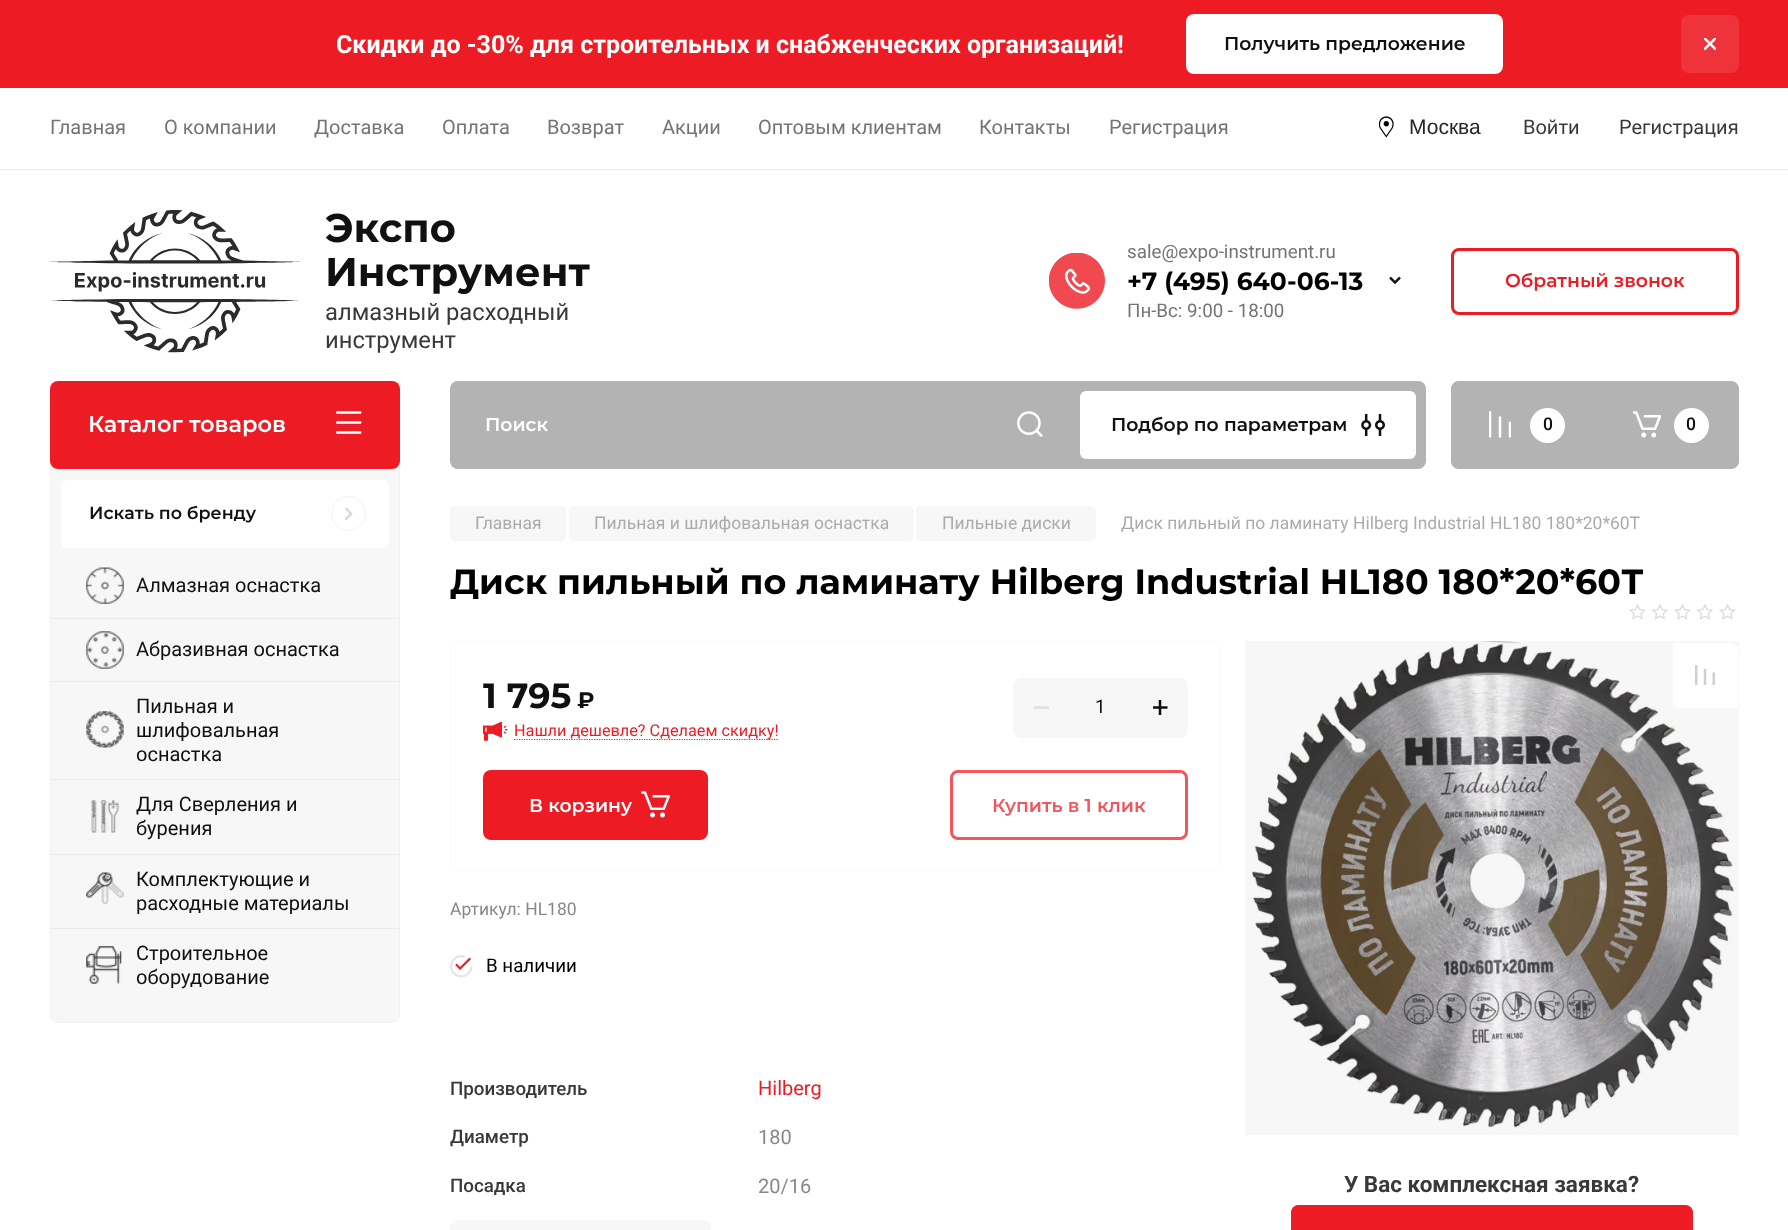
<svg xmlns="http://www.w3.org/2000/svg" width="1788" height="1230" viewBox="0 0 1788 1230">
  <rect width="100%" height="100%" fill="#ffffff"/>
  <rect x="0" y="0" width="1788" height="88" fill="#ed1c24"/>
  <text x="336" y="53" font-family="Roboto" font-size="25" font-weight="bold" fill="#ffffff">Скидки до -30% для строительных и снабженческих организаций!</text>
  <rect x="1186" y="14" width="317" height="60" rx="8" fill="#ffffff"/>
  <text x="1224" y="50" font-family="Montserrat" font-size="18.75" font-weight="600" fill="#101010">Получить предложение</text>
  <rect x="1681" y="15" width="58" height="58" rx="8" fill="#ef333a"/>
  <image x="1704" y="38" width="12" height="12" href="img1.png"/>
  <path d="M0 169V170H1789V89V169Z" fill="#ebebeb"/>
  <text x="50" y="134" font-family="Roboto" font-size="20" fill="#747474">Главная</text>
  <text x="164" y="134" font-family="Roboto" font-size="20" fill="#747474">О компании</text>
  <text x="314" y="134" font-family="Roboto" font-size="20" fill="#747474">Доставка</text>
  <text x="442" y="134" font-family="Roboto" font-size="20" fill="#747474">Оплата</text>
  <text x="547" y="134" font-family="Roboto" font-size="20" fill="#747474">Возврат</text>
  <text x="662" y="134" font-family="Roboto" font-size="20" fill="#747474">Акции</text>
  <text x="758" y="134" font-family="Roboto" font-size="20" fill="#747474">Оптовым клиентам</text>
  <text x="979" y="134" font-family="Roboto" font-size="20" fill="#747474">Контакты</text>
  <text x="1109" y="134" font-family="Roboto" font-size="20" fill="#747474">Регистрация</text>
  <image x="1379" y="116" width="15" height="22" href="img2.png"/>
  <text x="1409" y="134" font-family="Liberation Sans" font-size="21" fill="#262626">Москва</text>
  <text x="1523" y="134" font-family="Roboto" font-size="20" fill="#393939">Войти</text>
  <text x="1619" y="134" font-family="Roboto" font-size="20" fill="#393939">Регистрация</text>
  <image x="50" y="210" width="250" height="143" href="img3.png"/>
  <text x="325" y="242" font-family="Montserrat" font-size="40" font-weight="bold" fill="#101010">Экспо</text>
  <text x="325" y="286" font-family="Montserrat" font-size="40" font-weight="bold" fill="#101010">Инструмент</text>
  <text x="325" y="320" font-family="Roboto" font-size="23.75" fill="#393939">алмазный расходный</text>
  <text x="325" y="348" font-family="Roboto" font-size="23.75" fill="#393939">инструмент</text>
  <image x="1049" y="253" width="56" height="56" href="img4.png"/>
  <text x="1127" y="258" font-family="Roboto" font-size="18.75" fill="#747474">sale@expo-instrument.ru</text>
  <text x="1127" y="290" font-family="Montserrat" font-size="25" font-weight="bold" fill="#000000">+7 (495) 640-06-13</text>
  <text x="1127" y="317" font-family="Roboto" font-size="18.75" fill="#747474">Пн-Вс: 9:00 - 18:00</text>
  <image x="1389" y="276" width="12" height="9" href="img5.png"/>
  <rect x="1452.5" y="249.5" width="285" height="64" rx="6.5" fill="none" stroke="#ed1c24" stroke-width="3"/>
  <text x="1505" y="287" font-family="Montserrat" font-size="18.75" font-weight="600" fill="#ed1c24">Обратный звонок</text>
  <path d="M50 459H400V1015C400 1019.5 396.5 1023 392 1023H58C53.5 1023 50 1019.5 50 1015Z" fill="#f7f7f7"/>
  <path d="M50.5 459.5H399.5V1015C399.5 1019 396 1022.5 392 1022.5H58C54 1022.5 50.5 1019 50.5 1015Z" fill="none" stroke="#b3b3b3" stroke-opacity="0.08"/>
  <rect x="50" y="381" width="350" height="88" rx="8" fill="#ed1c24"/>
  <text x="88" y="432" font-family="Montserrat" font-size="22.5" font-weight="600" fill="#ffffff">Каталог товаров</text>
  <image x="336" y="411" width="26" height="23" href="img6.png"/>
  <rect x="450" y="381" width="976" height="88" rx="8" fill="#b3b3b3"/>
  <text x="485" y="431" font-family="Montserrat" font-size="18.75" font-weight="600" fill="#ffffff">Поиск</text>
  <image x="1017" y="411" width="26" height="26" href="img7.png"/>
  <rect x="1080" y="391" width="336" height="68" rx="6" fill="#ffffff"/>
  <text x="1111" y="431" font-family="Montserrat" font-size="18.75" font-weight="600" fill="#101010">Подбор по параметрам</text>
  <image x="1361" y="414" width="24" height="22" href="img8.png"/>
  <path d="M1459 381H1595V469H1459C1454.5 469 1451 465.5 1451 461V389C1451 384.5 1454.5 381 1459 381Z" fill="#b3b3b3"/>
  <image x="1489" y="411" width="22" height="27" href="img9.png"/>
  <circle cx="1547.5" cy="425.5" r="17.5" fill="#ffffff"/>
  <text x="1543" y="430" font-family="Roboto" font-size="17.5" font-weight="500" fill="#101010">0</text>
  <path d="M1595 381H1731C1735.5 381 1739 384.5 1739 389V461C1739 465.5 1735.5 469 1731 469H1595Z" fill="#b3b3b3"/>
  <image x="1633" y="411" width="28" height="27" href="img10.png"/>
  <circle cx="1691.5" cy="425.5" r="17.5" fill="#ffffff"/>
  <text x="1686" y="430" font-family="Roboto" font-size="17.5" font-weight="500" fill="#101010">0</text>
  <rect x="61" y="480" width="328" height="68" rx="6" fill="#ffffff"/>
  <text x="89" y="519" font-family="Montserrat" font-size="17.5" font-weight="600" fill="#101010">Искать по бренду</text>
  <image x="345" y="508" width="8" height="12" href="img11.png"/>
  <circle cx="348.5" cy="513.5" r="17" fill="none" stroke="#f1f4f5"/>
  <rect x="51" y="618" width="348" height="1" fill="#ebebeb"/>
  <image x="86" y="567" width="38" height="37" href="img12.png"/>
  <text x="136" y="592" font-family="Roboto" font-size="20" fill="#101010">Алмазная оснастка</text>
  <rect x="51" y="681" width="348" height="1" fill="#ebebeb"/>
  <image x="86" y="631" width="38" height="38" href="img13.png"/>
  <text x="136" y="656" font-family="Roboto" font-size="20" fill="#101010">Абразивная оснастка</text>
  <rect x="51" y="779" width="348" height="1" fill="#ebebeb"/>
  <image x="86" y="711" width="38" height="37" href="img14.png"/>
  <text x="136" y="713" font-family="Roboto" font-size="20" fill="#101010">Пильная и</text>
  <text x="136" y="737" font-family="Roboto" font-size="20" fill="#101010">шлифовальная</text>
  <text x="136" y="761" font-family="Roboto" font-size="20" fill="#101010">оснастка</text>
  <rect x="51" y="854" width="348" height="1" fill="#ebebeb"/>
  <image x="91" y="799" width="28" height="34" href="img15.png"/>
  <text x="136" y="811" font-family="Roboto" font-size="20" fill="#101010">Для Сверления и</text>
  <text x="136" y="835" font-family="Roboto" font-size="20" fill="#101010">бурения</text>
  <rect x="51" y="928" width="348" height="1" fill="#ebebeb"/>
  <image x="86" y="872" width="38" height="32" href="img16.png"/>
  <text x="136" y="886" font-family="Roboto" font-size="20" fill="#101010">Комплектующие и</text>
  <text x="136" y="910" font-family="Roboto" font-size="20" fill="#101010">расходные материалы</text>
  <image x="86" y="946" width="36" height="38" href="img17.png"/>
  <text x="136" y="960" font-family="Roboto" font-size="20" fill="#101010">Строительное</text>
  <text x="136" y="984" font-family="Roboto" font-size="20" fill="#101010">оборудование</text>
  <rect x="450" y="506" width="116" height="35" rx="5" fill="#f7f7f7"/>
  <text x="475" y="529" font-family="Roboto" font-size="17.5" fill="#ababab">Главная</text>
  <rect x="569" y="506" width="345" height="35" rx="5" fill="#f7f7f7"/>
  <text x="594" y="529" font-family="Roboto" font-size="17.5" fill="#ababab">Пильная и шлифовальная оснастка</text>
  <rect x="916" y="506" width="180" height="35" rx="5" fill="#f7f7f7"/>
  <text x="942" y="529" font-family="Roboto" font-size="17.5" fill="#ababab">Пильные диски</text>
  <text x="1121" y="529" font-family="Roboto" font-size="17.5" fill="#ababab">Диск пильный по ламинату Hilberg Industrial HL180 180*20*60Т</text>
  <text x="450" y="594" font-family="Montserrat" font-size="35" font-weight="bold" fill="#000000">Диск пильный по ламинату Hilberg Industrial HL180 180*20*60Т</text>
  <image x="1629" y="604" width="107" height="16" href="img18.png"/>
  <rect x="450.5" y="641.5" width="769" height="229" rx="9.5" fill="none" stroke="#f9f9f9"/>
  <text x="483" y="708" font-family="Montserrat" font-size="35" font-weight="bold" fill="#101010">1 795</text>
  <text x="577" y="708" font-family="Montserrat" font-size="22.5" font-weight="bold" fill="#101010">₽</text>
  <image x="483" y="721" width="25" height="20" href="img19.png"/>
  <path d="M514 739.5H779" fill="none" stroke="#ed1c24" stroke-width="1.2" stroke-dasharray="1.25 1.25"/>
  <text x="514" y="736" font-family="Roboto" font-size="16.25" fill="#ed1c24">Нашли дешевле? Сделаем скидку!</text>
  <rect x="1013" y="678" width="175" height="60" rx="8" fill="#f7f7f7"/>
  <path d="M1049 709H1034V706L1049 706.5Z" fill="#e0e0e0"/>
  <text x="1095" y="713" font-family="Roboto" font-size="18.75" fill="#101010">1</text>
  <image x="1153" y="700" width="15" height="15" href="img20.png"/>
  <rect x="483" y="770" width="225" height="70" rx="8" fill="#ed1c24"/>
  <text x="529" y="812" font-family="Montserrat" font-size="18.75" font-weight="600" fill="#ffffff">В корзину</text>
  <image x="641" y="791" width="29" height="27" href="img21.png"/>
  <rect x="951.5" y="771.5" width="235" height="67" rx="6.5" fill="none" stroke="#f2555b" stroke-width="3"/>
  <text x="992" y="812" font-family="Montserrat" font-size="18.75" font-weight="600" fill="#f2555b">Купить в 1 клик</text>
  <text x="450" y="915" font-family="Roboto" font-size="17.5" fill="#888888">Артикул: HL180</text>
  <image x="450" y="955" width="23" height="23" href="img22.png"/>
  <image x="455" y="958" width="16" height="12" href="img23.png"/>
  <text x="486" y="972" font-family="Roboto" font-size="18.75" fill="#000000">В наличии</text>
  <text x="450" y="1095" font-family="Roboto" font-size="18.75" font-weight="500" fill="#393939">Производитель</text>
  <text x="758" y="1095" font-family="Roboto" font-size="20" fill="#ed1c24">Hilberg</text>
  <text x="450" y="1143" font-family="Roboto" font-size="18.75" font-weight="500" fill="#393939">Диаметр</text>
  <text x="758" y="1144" font-family="Roboto" font-size="20" fill="#888888">180</text>
  <text x="450" y="1192" font-family="Roboto" font-size="18.75" font-weight="500" fill="#393939">Посадка</text>
  <text x="758" y="1193" font-family="Roboto" font-size="20" fill="#888888">20/16</text>
  <rect x="450" y="1220" width="261" height="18" rx="8" fill="#f7f7f7"/>
  <image x="1251" y="641" width="485" height="488" href="img24.png"/>
  <rect x="1245" y="641" width="494" height="494" fill="#000000" fill-opacity="0.03"/>
  <path d="M1673 643H1730C1734.5 643 1738 646.5 1738 651V708H1681C1676.5 708 1673 704.5 1673 700Z" fill="#ffffff"/>
  <image x="1695" y="665" width="20" height="20" href="img25.png"/>
  <text x="1344" y="1192" font-family="Roboto" font-size="22.5" font-weight="bold" fill="#393939">У Вас комплексная заявка?</text>
  <rect x="1291" y="1205" width="402" height="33" rx="8" fill="#ed1c24"/>
  <rect x="1292.5" y="1206.5" width="399" height="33" rx="6.5" fill="none" stroke="#ed1c24" stroke-opacity="0.75" stroke-width="3"/>
</svg>
